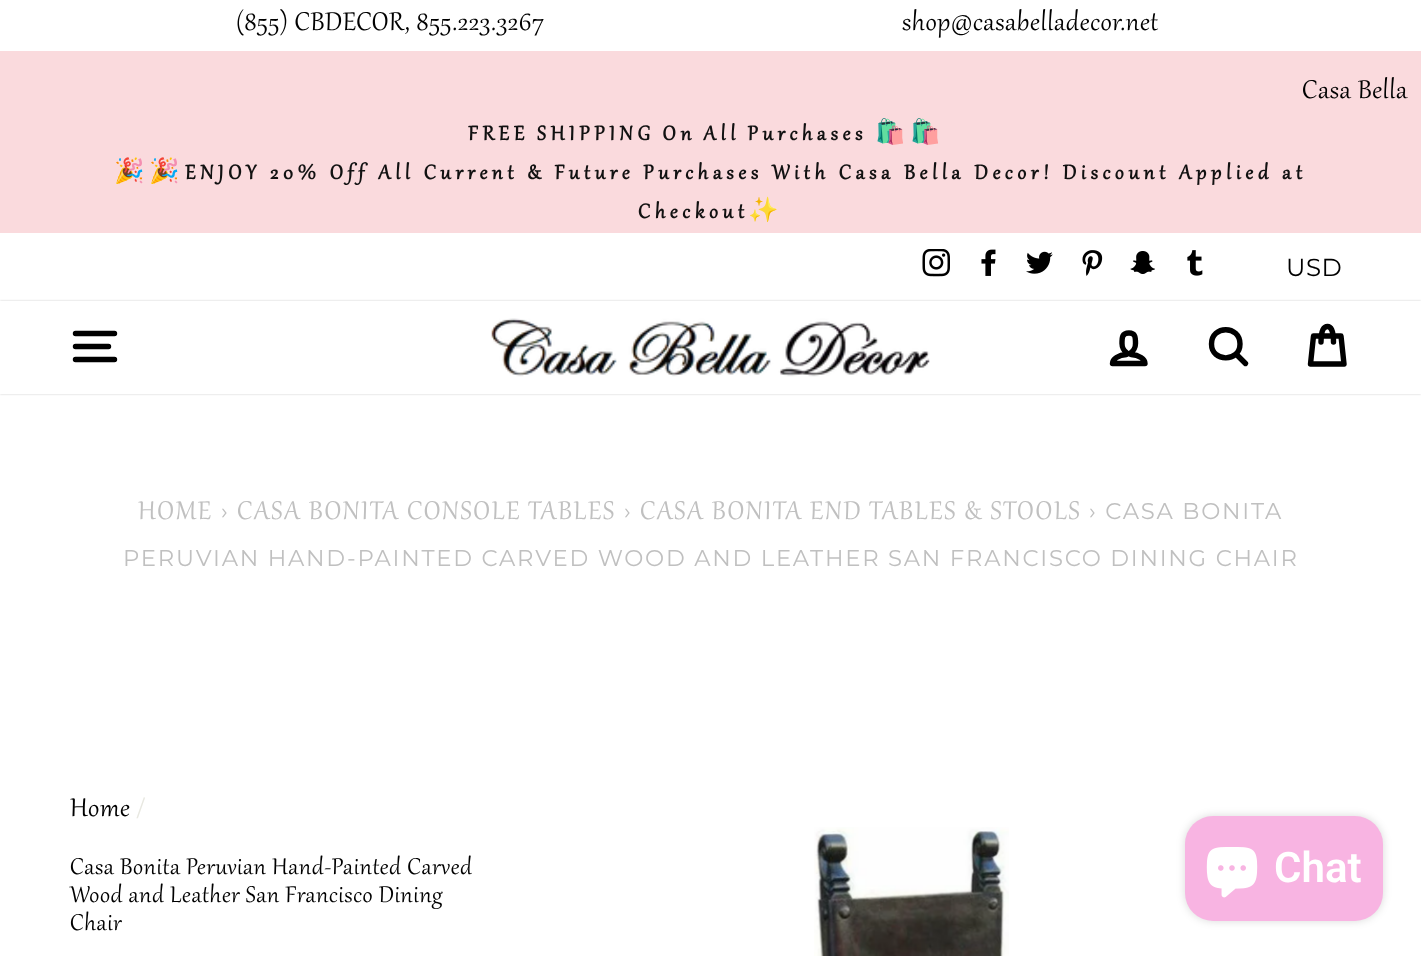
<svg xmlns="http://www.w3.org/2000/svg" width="1421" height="956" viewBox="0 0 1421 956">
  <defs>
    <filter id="blur1" x="-50%" y="-200%" width="200%" height="500%"><feGaussianBlur stdDeviation="1"/></filter>
    <filter id="blur2" x="-50%" y="-200%" width="200%" height="500%"><feGaussianBlur stdDeviation="4.5"/></filter>
  </defs>
  <rect width="100%" height="100%" fill="#ffffff"/>
  <text x="236" y="30" font-family="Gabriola" font-size="31.5" letter-spacing="0.65" fill="#000000">(855) CBDECOR, 855.223.3267</text>
  <text x="902" y="30" font-family="Gabriola" font-size="31.5" letter-spacing="0.65" fill="#000000">shop@casabelladecor.net</text>
  <rect x="0" y="51" width="1421" height="182" fill="#fadadd"/>
  <text x="1302" y="98" font-family="Gabriola" font-size="31.5" letter-spacing="0.65" fill="#000000">Casa Bella</text>
  <text x="468" y="140" word-spacing="-1.5" font-family="Gabriola" font-size="24.5" font-weight="bold" letter-spacing="4.9" fill="#111111">FREE SHIPPING On All Purchases</text>
  <text x="875" y="140" font-family="Noto Color Emoji" font-size="24.5" font-weight="bold" letter-spacing="4.9" fill="#111111">🛍️🛍️</text>
  <text x="114" y="179" font-family="Noto Color Emoji" font-size="24.5" font-weight="bold" letter-spacing="4.9" fill="#111111">🎉🎉</text>
  <text x="185" y="179" font-family="Gabriola" font-size="24.5" font-weight="bold" letter-spacing="4.9" fill="#111111">ENJOY 20% Off All Current &amp; Future Purchases With Casa Bella Decor! Discount Applied at</text>
  <text x="638" y="218" font-family="Gabriola" font-size="24.5" font-weight="bold" letter-spacing="4.9" fill="#111111">Checkout</text>
  <text x="748" y="218" font-family="Noto Color Emoji" font-size="24.5" font-weight="bold" letter-spacing="4.9" fill="#111111">✨</text>
  <image x="922" y="249" width="28" height="28" href="img1.png"/>
  <image x="981" y="249" width="15" height="27" href="img2.png"/>
  <image x="1026" y="251" width="27" height="23" href="img3.png"/>
  <image x="1082" y="250" width="21" height="26" href="img4.png"/>
  <image x="1130" y="251" width="25" height="23" href="img5.png"/>
  <image x="1187" y="250" width="16" height="26" href="img6.png"/>
  <text x="1286" y="276" font-family="Montserrat" font-size="24.5" letter-spacing="0.5" fill="#000000">USD</text>
  <rect x="0" y="301" width="1421" height="93" fill="#000000" fill-opacity="0.2" filter="url(#blur1)"/>
  <rect x="0" y="301" width="1421" height="93" fill="#ffffff"/>
  <path d="M75.5 333.5H114.5M75.5 346.5H108.5M75.5 359.5H114.5" fill="none" stroke="#000000" stroke-width="5.4" stroke-linecap="round" stroke-linejoin="round"/>
  <image x="491" y="318" width="439" height="59" href="img7.png"/>
  <path d="M1131 354.5V352.5C1133.5 351 1135.5 347 1135.5 343.5C1135.5 337.5 1135.5 333 1129 333C1122 333 1122 337.5 1122 343.5C1122 347 1124 351 1126.5 352.5V354.5C1118.5 355 1112.5 359 1112.5 363.5H1145C1145 359 1139 355 1131 354.5Z" fill="none" stroke="#000000" stroke-width="5.4" stroke-linecap="round" stroke-linejoin="round"/>
  <path d="M1240 344C1240 362.5 1211.5 362.5 1211.5 344C1211.5 325 1240 325 1240 344ZM1245.5 363.5L1236 354" fill="none" stroke="#000000" stroke-width="5.4" stroke-linecap="round" stroke-linejoin="round"/>
  <path d="M1321 342C1321 330 1324 326.5 1327.5 326.5C1330.5 326.5 1333.5 330 1333.5 342M1313.5 336H1341L1344 364H1310.5Z" fill="none" stroke="#000000" stroke-width="5.4" stroke-linecap="round" stroke-linejoin="round"/>
  <text x="138" y="519" font-family="Gabriola" font-size="31.5" letter-spacing="1.75" fill="#c0c0c0">HOME</text>
  <text x="221" y="519" font-family="Montserrat" font-size="22.75" letter-spacing="1.75" fill="#c0c0c0">›</text>
  <text x="237" y="519" font-family="Gabriola" font-size="31.5" letter-spacing="1.75" fill="#c0c0c0">CASA BONITA CONSOLE TABLES</text>
  <text x="624" y="519" font-family="Montserrat" font-size="22.75" letter-spacing="1.75" fill="#c0c0c0">›</text>
  <text x="640" y="519" font-family="Gabriola" font-size="31.5" letter-spacing="1.75" fill="#c0c0c0">CASA BONITA END TABLES &amp; STOOLS</text>
  <text x="1089" y="519" font-family="Montserrat" font-size="22.75" letter-spacing="1.75" fill="#c0c0c0">› CASA BONITA</text>
  <text x="123" y="566" font-family="Montserrat" font-size="22.75" letter-spacing="1.75" fill="#c0c0c0">PERUVIAN HAND-PAINTED CARVED WOOD AND LEATHER SAN FRANCISCO DINING CHAIR</text>
  <text x="70" y="816" font-family="Gabriola" font-size="31.5" letter-spacing="0.65" fill="#000000">Home</text>
  <text x="137" y="816" font-family="Montserrat" font-size="22" letter-spacing="0.65" fill="#e8e8e1">/</text>
  <text x="70" y="874" font-family="Gabriola" font-size="28" letter-spacing="0.7" fill="#000000">Casa Bonita Peruvian Hand-Painted Carved</text>
  <text x="70" y="902" font-family="Gabriola" font-size="28" letter-spacing="0.7" fill="#000000">Wood and Leather San Francisco Dining</text>
  <text x="70" y="930" font-family="Gabriola" font-size="28" letter-spacing="0.7" fill="#000000">Chair</text>
  <image x="814" y="827" width="195" height="129" href="img8.png"/>
  <rect x="1185" y="816" width="198" height="105" rx="28" fill="#000000" fill-opacity="0.15" filter="url(#blur2)"/>
  <rect x="1185" y="816" width="198" height="105" rx="28" fill="#f8b4e2"/>
  <image x="1206" y="847" width="52" height="51" href="img9.png"/>
  <text x="1274" y="882" font-family="Roboto" font-size="42" font-weight="600" fill="#ffffff">Chat</text>
</svg>
